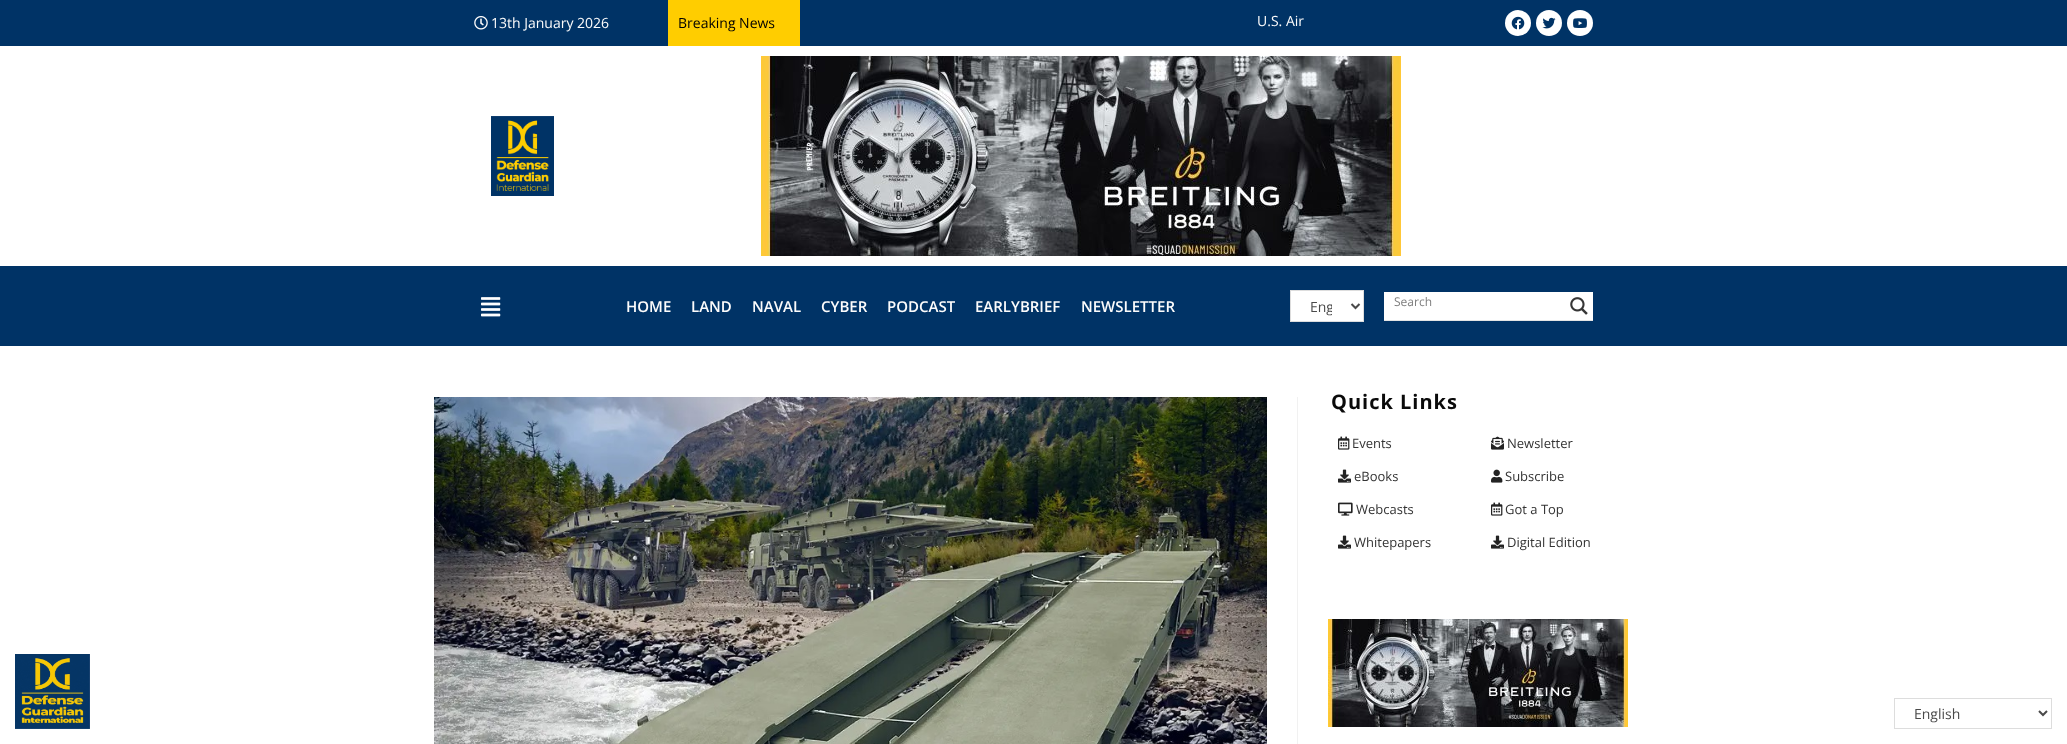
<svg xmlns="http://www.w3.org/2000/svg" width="2067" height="744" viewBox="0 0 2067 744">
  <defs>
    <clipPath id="clip1"><rect x="1310" y="296" width="22" height="21"/></clipPath>
  </defs>
  <rect width="100%" height="100%" fill="#ffffff"/>
  <rect x="0" y="0" width="2067" height="46" fill="#003366"/>
  <image x="474" y="16" width="14" height="14" href="img1.png"/>
  <text x="491" y="28" font-family="Open Sans" font-size="14" fill="#fcfcfc">13th January 2026</text>
  <rect x="668" y="0" width="132" height="46" fill="#ffcd00"/>
  <text x="678" y="28" font-family="Open Sans" font-size="14" fill="#000000">Breaking News</text>
  <text x="1257" y="26" font-family="Open Sans" font-size="14" fill="#fcfcfc">U.S. Air</text>
  <circle cx="1518" cy="23" r="13" fill="#ffffff"/>
  <image x="1511" y="16" width="14" height="14" href="img2.png"/>
  <circle cx="1549" cy="23" r="13" fill="#ffffff"/>
  <image x="1542" y="17" width="14" height="12" href="img3.png"/>
  <circle cx="1580" cy="23" r="13" fill="#ffffff"/>
  <image x="1573" y="18" width="14" height="10" href="img4.png"/>
  <image x="491" y="116" width="63" height="80" href="img5.png"/>
  <image x="761" y="56" width="640" height="200" href="img6.png"/>
  <rect x="0" y="266" width="2067" height="80" fill="#003366"/>
  <image x="481" y="297" width="20" height="20" href="img7.png"/>
  <text x="626" y="312" font-family="Open Sans" font-size="15" font-weight="600" fill="#fcfcfc">HOME</text>
  <text x="691" y="312" font-family="Open Sans" font-size="15" font-weight="600" fill="#fcfcfc">LAND</text>
  <text x="752" y="312" font-family="Open Sans" font-size="15" font-weight="600" fill="#fcfcfc">NAVAL</text>
  <text x="821" y="312" font-family="Open Sans" font-size="15" font-weight="600" fill="#fcfcfc">CYBER</text>
  <text x="887" y="312" font-family="Open Sans" font-size="15" font-weight="600" fill="#fcfcfc">PODCAST</text>
  <text x="975" y="312" font-family="Open Sans" font-size="15" font-weight="600" fill="#fcfcfc">EARLYBRIEF</text>
  <text x="1081" y="312" font-family="Open Sans" font-size="15" font-weight="600" fill="#fcfcfc">NEWSLETTER</text>
  <rect x="1290.5" y="290.5" width="73" height="31" fill="#ffffff" stroke="#dddddd"/>
  <path d="M1351.5 304L1355.5 308L1359.5 304" fill="none" stroke="#4a4a4a" stroke-width="2"/>
  <g clip-path="url(#clip1)">
    <text x="1310" y="312" font-family="Open Sans" font-size="14" fill="#4a4a4a">Eng</text>
  </g>
  <rect x="1384" y="320" width="209" height="1" fill="#e4e4e4"/>
  <rect x="1384" y="292" width="209" height="28" fill="#ffffff"/>
  <text x="1394" y="306" font-family="Open Sans" font-size="12" fill="#7d7d7d">Search</text>
  <image x="1570" y="297" width="18" height="18" href="img8.png"/>
  <rect x="1297" y="397" width="1" height="347" fill="#f1f1f1"/>
  <image x="434" y="397" width="833" height="347" href="img9.png"/>
  <text x="1331" y="409" font-family="Open Sans" font-size="20" font-weight="bold" letter-spacing="1" fill="#0a0a0a">Quick Links</text>
  <image x="1338" y="436" width="12" height="14" href="img10.png"/>
  <text x="1352" y="448" font-family="Open Sans" font-size="13" fill="#333333">Events</text>
  <image x="1338" y="469" width="13" height="14" href="img11.png"/>
  <text x="1354" y="481" font-family="Open Sans" font-size="13" fill="#333333">eBooks</text>
  <image x="1338" y="502" width="15" height="14" href="img12.png"/>
  <text x="1356" y="514" font-family="Open Sans" font-size="13" fill="#333333">Webcasts</text>
  <image x="1338" y="535" width="13" height="14" href="img11.png"/>
  <text x="1354" y="547" font-family="Open Sans" font-size="13" fill="#333333">Whitepapers</text>
  <image x="1491" y="436" width="13" height="14" href="img13.png"/>
  <text x="1507" y="448" font-family="Open Sans" font-size="13" fill="#333333">Newsletter</text>
  <image x="1491" y="469" width="12" height="14" href="img14.png"/>
  <text x="1505" y="481" font-family="Open Sans" font-size="13" fill="#333333">Subscribe</text>
  <image x="1491" y="502" width="12" height="14" href="img10.png"/>
  <text x="1505" y="514" font-family="Open Sans" font-size="13" fill="#333333">Got a Top</text>
  <image x="1491" y="535" width="13" height="14" href="img11.png"/>
  <text x="1507" y="547" font-family="Open Sans" font-size="13" fill="#333333">Digital Edition</text>
  <image x="1328" y="619" width="300" height="108" href="img15.png"/>
  <image x="15" y="654" width="75" height="75" href="img16.png"/>
  <rect x="1894.5" y="698.5" width="157" height="30" fill="none" stroke="#dddddd"/>
  <path d="M2039 711L2043 715L2047 711" fill="none" stroke="#4a4a4a" stroke-width="2"/>
  <text x="1914" y="719" font-family="Open Sans" font-size="14" fill="#4a4a4a">English</text>
</svg>
